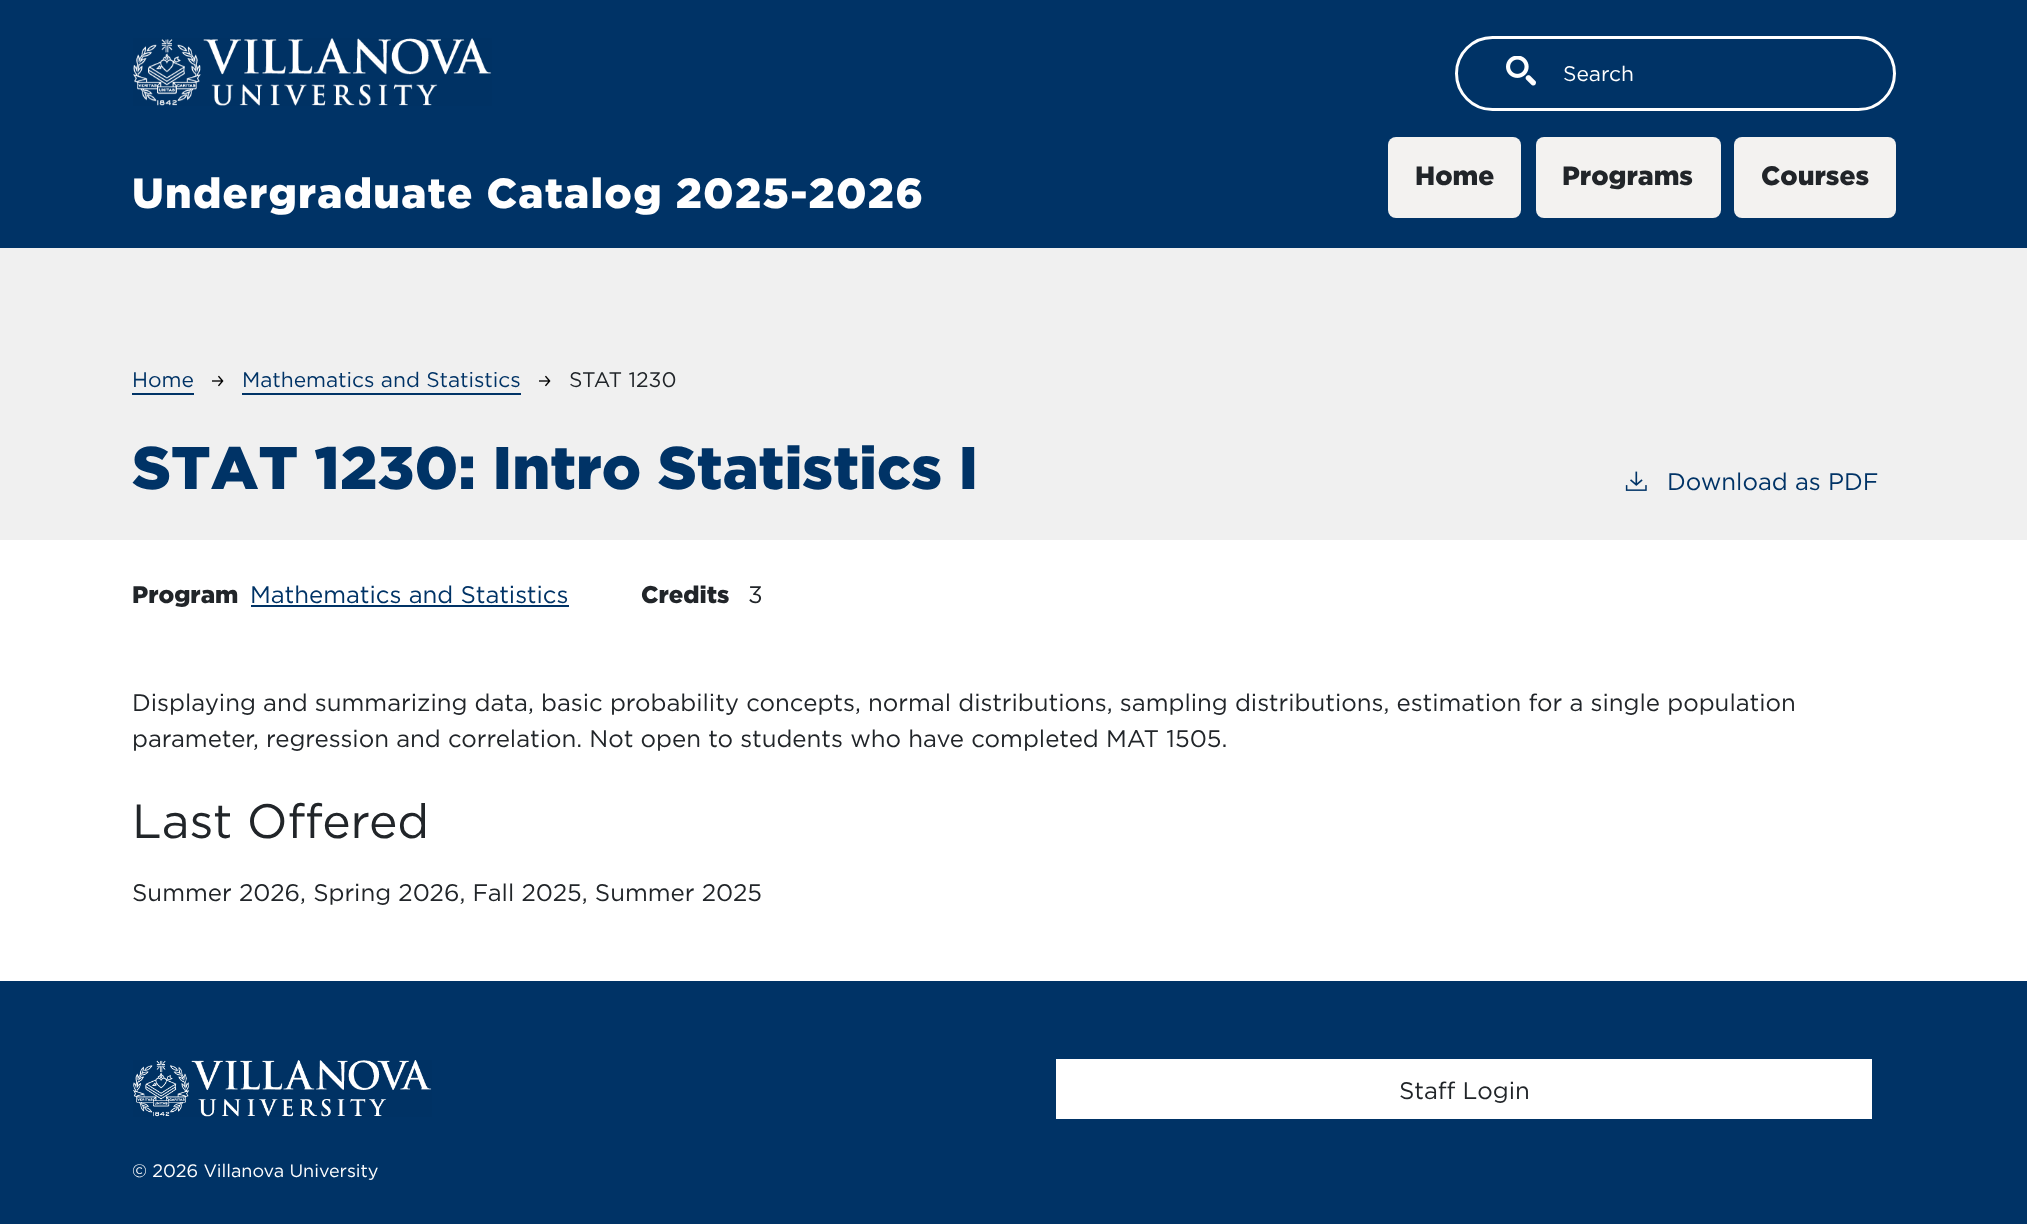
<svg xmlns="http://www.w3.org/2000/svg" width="2027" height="1224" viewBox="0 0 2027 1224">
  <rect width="100%" height="100%" fill="#ffffff"/>
  <rect x="0" y="0" width="2027" height="248" fill="#003366"/>
  <rect x="1456.5" y="37.5" width="438" height="72" rx="36" fill="none" stroke="#ffffff" stroke-width="3"/>
  <image x="1506" y="56" width="30" height="30" href="img1.png"/>
  <text x="1563" y="81" font-family="Gotham" font-size="21" fill="#ffffff">Search</text>
  <rect x="1388" y="137" width="133" height="81" rx="8" fill="#f3f2f0"/>
  <text x="1415" y="185" font-family="Gotham" font-size="26.5" font-weight="900" fill="#212529">Home</text>
  <rect x="1536" y="137" width="185" height="81" rx="8" fill="#f3f2f0"/>
  <text x="1562" y="185" font-family="Gotham" font-size="26.5" font-weight="900" fill="#212529">Programs</text>
  <rect x="1734" y="137" width="162" height="81" rx="8" fill="#f3f2f0"/>
  <text x="1761" y="185" font-family="Gotham" font-size="26.5" font-weight="900" fill="#212529">Courses</text>
  <image x="133" y="38" width="359" height="68" href="img2.png"/>
  <text x="132" y="208" font-family="Gotham" font-size="42" font-weight="900" letter-spacing="1.25" fill="#ffffff">Undergraduate Catalog 2025-2026</text>
  <rect x="0" y="248" width="2027" height="292" fill="#f0f0f0"/>
  <text x="132" y="387" font-family="Gotham" font-size="21" fill="#003366">Home</text>
  <rect x="132" y="393" width="62" height="2" fill="#003366"/>
  <image x="212" y="375" width="12" height="12" href="img3.png"/>
  <text x="242" y="387" font-family="Gotham" font-size="21" fill="#003366">Mathematics and Statistics</text>
  <rect x="242" y="393" width="279" height="2" fill="#003366"/>
  <image x="539" y="375" width="12" height="12" href="img3.png"/>
  <text x="569" y="387" font-family="Gotham" font-size="21" fill="#212529">STAT 1230</text>
  <text x="132" y="489" font-family="Gotham" font-size="60" font-weight="900" fill="#003366">STAT 1230: Intro Statistics I</text>
  <image x="1625" y="471" width="22" height="20" href="img4.png"/>
  <text x="1667" y="490" font-family="Gotham" font-size="24" fill="#003366">Download as PDF</text>
  <text x="132" y="603" font-family="Gotham" font-size="24" font-weight="900" fill="#212529">Program</text>
  <text x="250" y="603" font-family="Gotham" font-size="24" fill="#003366">Mathematics and Statistics</text>
  <rect x="251" y="605" width="318" height="2" fill="#003366"/>
  <text x="641" y="603" font-family="Gotham" font-size="24" font-weight="900" fill="#212529">Credits</text>
  <text x="748" y="603" font-family="Gotham" font-size="24" fill="#212529">3</text>
  <text x="132" y="711" font-family="Gotham" font-size="24" fill="#212529">Displaying and summarizing data, basic probability concepts, normal distributions, sampling distributions, estimation for a single population</text>
  <text x="132" y="747" font-family="Gotham" font-size="24" fill="#212529">parameter, regression and correlation. Not open to students who have completed MAT 1505.</text>
  <text x="132" y="838" font-family="Gotham" font-size="48" fill="#212529">Last Offered</text>
  <text x="132" y="901" font-family="Gotham" font-size="24" fill="#212529">Summer 2026, Spring 2026, Fall 2025, Summer 2025</text>
  <rect x="0" y="981" width="2027" height="243" fill="#003366"/>
  <image x="133" y="1060" width="299" height="57" href="img5.png"/>
  <rect x="1056" y="1059" width="816" height="60" fill="#ffffff"/>
  <text x="1399" y="1099" font-family="Gotham" font-size="24" fill="#212529">Staff Login</text>
  <text x="132" y="1177" font-family="Gotham" font-size="18" fill="#ffffff">© 2026 Villanova University</text>
</svg>
